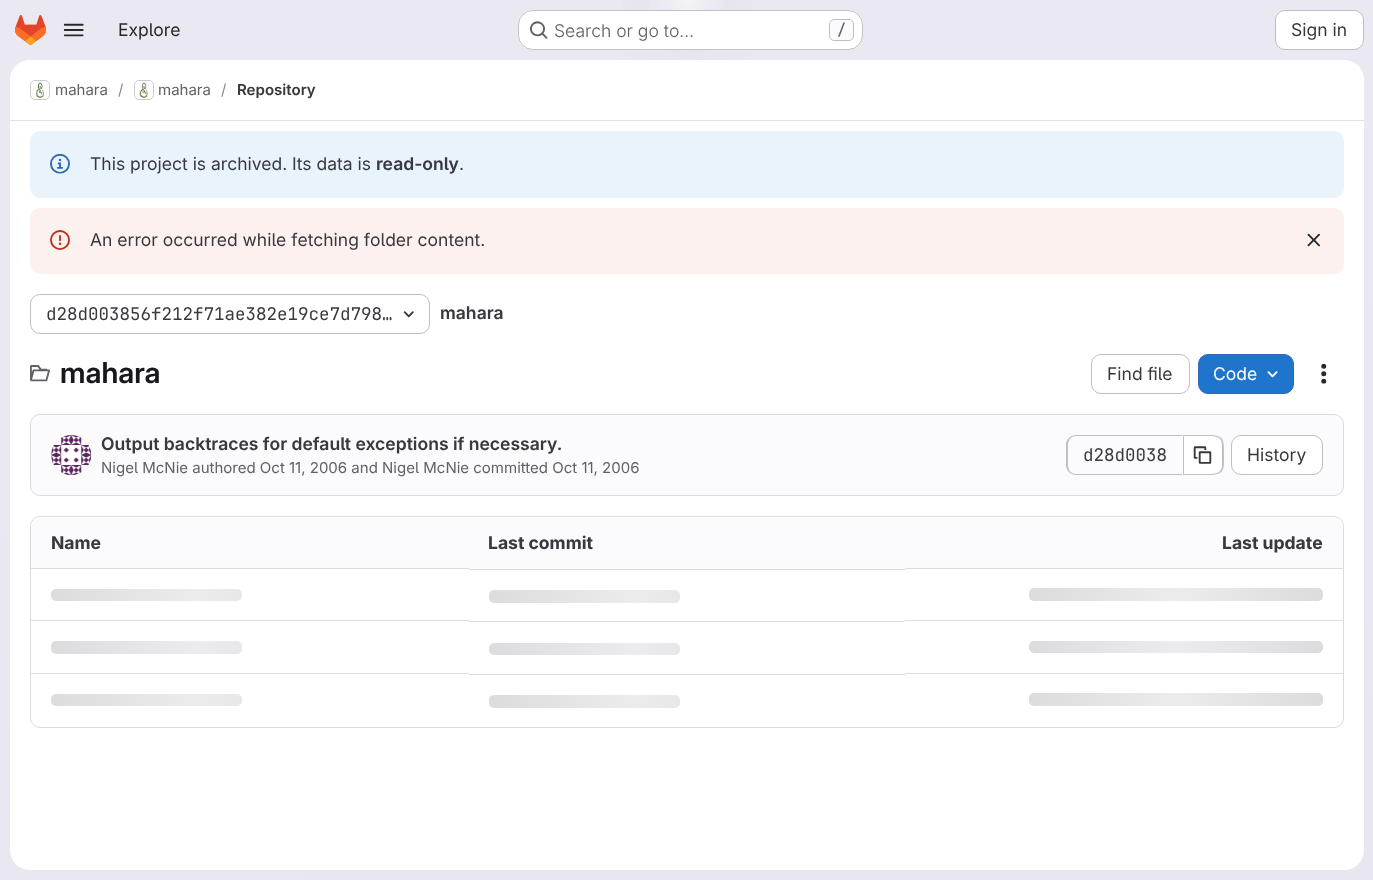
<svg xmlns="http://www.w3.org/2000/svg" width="1373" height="880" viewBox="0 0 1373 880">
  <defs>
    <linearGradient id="g1" gradientUnits="userSpaceOnUse" x1="783" y1="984" x2="591" y2="-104"><stop offset="0" stop-color="#e8e6f0"/><stop offset="0.7" stop-color="#eae9f2"/></linearGradient>
    <radialGradient id="g2" gradientUnits="userSpaceOnUse" cx="0" cy="0" r="1" gradientTransform="matrix(687 0 0 880 687 0)"><stop offset="0" stop-color="#e4e2ed"/><stop offset="0.13" stop-color="#e4e2ed" stop-opacity="0"/></radialGradient>
    <radialGradient id="g3" gradientUnits="userSpaceOnUse" cx="0" cy="0" r="1" gradientTransform="matrix(687 0 0 880 687 0)"><stop offset="0" stop-color="#e4e2ec"/><stop offset="0.09" stop-color="#e4e2ec" stop-opacity="0"/></radialGradient>
    <radialGradient id="g4" gradientUnits="userSpaceOnUse" cx="687" cy="0" r="1116"><stop offset="0" stop-color="#ffffff" stop-opacity="0.6"/><stop offset="0.04" stop-color="#ffffff" stop-opacity="0"/></radialGradient>
    <linearGradient id="g5" gradientUnits="userSpaceOnUse" x1="51" y1="589" x2="345" y2="589"><stop offset="0" stop-color="#dcdcde"/><stop offset="0.5" stop-color="#ececef"/><stop offset="1" stop-color="#dcdcde"/></linearGradient>
    <linearGradient id="g6" gradientUnits="userSpaceOnUse" x1="489" y1="590" x2="783" y2="590"><stop offset="0" stop-color="#dcdcde"/><stop offset="0.5" stop-color="#ececef"/><stop offset="1" stop-color="#dcdcde"/></linearGradient>
    <linearGradient id="g7" gradientUnits="userSpaceOnUse" x1="1029" y1="588" x2="1323" y2="588"><stop offset="0" stop-color="#dcdcde"/><stop offset="0.5" stop-color="#ececef"/><stop offset="1" stop-color="#dcdcde"/></linearGradient>
    <linearGradient id="g8" gradientUnits="userSpaceOnUse" x1="51" y1="641" x2="345" y2="641"><stop offset="0" stop-color="#dcdcde"/><stop offset="0.5" stop-color="#ececef"/><stop offset="1" stop-color="#dcdcde"/></linearGradient>
    <linearGradient id="g9" gradientUnits="userSpaceOnUse" x1="489" y1="643" x2="783" y2="643"><stop offset="0" stop-color="#dcdcde"/><stop offset="0.5" stop-color="#ececef"/><stop offset="1" stop-color="#dcdcde"/></linearGradient>
    <linearGradient id="g10" gradientUnits="userSpaceOnUse" x1="1029" y1="641" x2="1323" y2="641"><stop offset="0" stop-color="#dcdcde"/><stop offset="0.5" stop-color="#ececef"/><stop offset="1" stop-color="#dcdcde"/></linearGradient>
    <linearGradient id="g11" gradientUnits="userSpaceOnUse" x1="51" y1="694" x2="345" y2="694"><stop offset="0" stop-color="#dcdcde"/><stop offset="0.5" stop-color="#ececef"/><stop offset="1" stop-color="#dcdcde"/></linearGradient>
    <linearGradient id="g12" gradientUnits="userSpaceOnUse" x1="489" y1="695" x2="783" y2="695"><stop offset="0" stop-color="#dcdcde"/><stop offset="0.5" stop-color="#ececef"/><stop offset="1" stop-color="#dcdcde"/></linearGradient>
    <linearGradient id="g13" gradientUnits="userSpaceOnUse" x1="1029" y1="693" x2="1323" y2="693"><stop offset="0" stop-color="#dcdcde"/><stop offset="0.5" stop-color="#ececef"/><stop offset="1" stop-color="#dcdcde"/></linearGradient>
  </defs>
  <rect width="100%" height="100%" fill="#ffffff"/>
  <rect x="0" y="0" width="1373" height="880" fill="url(#g1)"/>
  <rect x="622" y="0" width="130" height="60" fill="url(#g2)"/>
  <rect x="664" y="0" width="46" height="19" fill="url(#g3)"/>
  <rect x="649" y="0" width="76" height="10" fill="url(#g4)"/>
  <image x="15" y="15" width="31" height="30" href="img1.png"/>
  <image x="63" y="23" width="21" height="14" href="img2.png"/>
  <text x="118" y="36" font-family="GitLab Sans" font-size="17.5" fill="#28272d">Explore</text>
  <rect x="518" y="10" width="345" height="40" rx="15" fill="#ffffff"/>
  <rect x="518.5" y="10.5" width="344" height="39" rx="14.5" fill="none" stroke="#050506" stroke-opacity="0.24"/>
  <image x="530" y="21" width="18" height="18" href="img3.png"/>
  <text x="554" y="37" font-family="GitLab Sans" font-size="17.5" font-weight="300" fill="#626168">Search or go to…</text>
  <rect x="829.5" y="19.5" width="24" height="21" rx="4.5" fill="#fbfafd" stroke="#bfbfc3"/>
  <text x="837" y="35" font-family="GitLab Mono" font-size="15" font-weight="500" fill="#626168">/</text>
  <rect x="1275.5" y="10.5" width="88" height="39" rx="9.5" fill="#ffffff" stroke="#bfbfc3"/>
  <text x="1291" y="36" font-family="GitLab Sans" font-size="17.5" fill="#3a383f">Sign in</text>
  <rect x="10" y="60" width="1354" height="810" rx="20" fill="#ffffff"/>
  <path d="M30 60H1344C1355 60 1364 69 1364 80V121H10V80C10 69 19 60 30 60Z" fill="#ffffff"/>
  <rect x="10" y="120" width="1354" height="1" fill="#e1dfec"/>
  <rect x="30.5" y="80.5" width="19" height="19" rx="4.5" fill="none" stroke="#dcdcde"/>
  <image x="31" y="81" width="18" height="18" href="img4.png"/>
  <rect x="30.5" y="80.5" width="19" height="19" rx="4.5" fill="none" stroke="#050506" stroke-opacity="0.08"/>
  <text x="55" y="95" font-family="GitLab Sans" font-size="15" fill="#626168">mahara</text>
  <text x="118" y="95" font-family="GitLab Sans" font-size="15" fill="#89888d">/</text>
  <rect x="134.5" y="80.5" width="19" height="19" rx="4.5" fill="none" stroke="#dcdcde"/>
  <image x="135" y="81" width="13" height="18" href="img5.png"/>
  <rect x="134.5" y="80.5" width="19" height="19" rx="4.5" fill="none" stroke="#050506" stroke-opacity="0.08"/>
  <text x="158" y="95" font-family="GitLab Sans" font-size="15" fill="#626168">mahara</text>
  <text x="221" y="95" font-family="GitLab Sans" font-size="15" fill="#89888d">/</text>
  <text x="237" y="95" font-family="'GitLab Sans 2'" font-size="15" font-weight="600" fill="#3a383f">Repository</text>
  <rect x="30" y="131" width="1314" height="67" rx="10" fill="#e9f3fc"/>
  <image x="50" y="153" width="20" height="21" href="img6.png"/>
  <text x="90" y="170" font-family="GitLab Sans" font-size="17.5" fill="#3a383f">This project is archived. Its data is</text>
  <text x="376" y="170" font-family="'GitLab Sans 2'" font-size="17.5" font-weight="600" fill="#3a383f">read-only</text>
  <text x="459" y="170" font-family="GitLab Sans" font-size="17.5" fill="#3a383f">.</text>
  <rect x="30" y="208" width="1314" height="66" rx="10" fill="#fcf1ef"/>
  <image x="50" y="230" width="20" height="20" href="img7.png"/>
  <text x="90" y="246" font-family="GitLab Sans" font-size="17.5" fill="#3a383f">An error occurred while fetching folder content.</text>
  <image x="1307" y="233" width="13" height="14" href="img8.png"/>
  <rect x="30.5" y="294.5" width="399" height="39" rx="9.5" fill="none" stroke="#bfbfc3"/>
  <text x="46" y="320" font-family="GitLab Mono" font-size="17.5" fill="#3a383f">d28d003856f212f71ae382e19ce7d798…</text>
  <image x="403" y="311" width="11" height="7" href="img9.png"/>
  <text x="440" y="319" font-family="'GitLab Sans 2'" font-size="17.5" font-weight="600" fill="#3a383f">mahara</text>
  <image x="30" y="365" width="20" height="17" href="img10.png"/>
  <text x="60" y="383" font-family="GitLab Sans" font-size="29" font-weight="600" fill="#18171d">mahara</text>
  <rect x="1091.5" y="354.5" width="98" height="39" rx="9.5" fill="none" stroke="#bfbfc3"/>
  <text x="1107" y="380" font-family="GitLab Sans" font-size="17.5" fill="#3a383f">Find file</text>
  <rect x="1198.5" y="354.5" width="95" height="39" rx="9.5" fill="#1f75cb" stroke="#2f68b4"/>
  <text x="1213" y="380" font-family="GitLab Sans" font-size="17.5" fill="#ffffff">Code</text>
  <image x="1267" y="371" width="11" height="7" href="img11.png"/>
  <image x="1321" y="363" width="6" height="21" href="img12.png"/>
  <rect x="30.5" y="414.5" width="1313" height="81" rx="9.5" fill="#fbfafd" stroke="#dcdcde"/>
  <image x="51" y="435" width="41" height="40" href="img13.png"/>
  <circle cx="71" cy="455" r="19.5" fill="none" stroke="#050506" stroke-opacity="0.08"/>
  <text x="101" y="450" font-family="'GitLab Sans 2'" font-size="17.5" font-weight="600" fill="#3a383f">Output backtraces for default exceptions if necessary.</text>
  <text x="101" y="473" font-family="GitLab Sans" font-size="15" fill="#626168">Nigel McNie authored Oct 11, 2006 and Nigel McNie committed Oct 11, 2006</text>
  <path d="M1076 435H1182V475H1076C1071 475 1066 471 1066 465V445C1066 439 1071 435 1076 435ZM1076 436H1182V474H1076C1071 474 1068 470 1068 465V445C1068 440 1071 436 1076 436Z" fill="#bfbfc3" fill-rule="evenodd"/>
  <text x="1083" y="461" font-family="GitLab Mono" font-size="17.5" fill="#3a383f">d28d0038</text>
  <path d="M1184 436H1214C1219 436 1223 440 1223 445V465C1223 470 1219 474 1214 474H1184Z" fill="#ffffff"/>
  <path d="M1184 435H1209C1225 435 1224 441 1224 455C1224 469 1225 475 1209 475H1184ZM1184 436H1209C1224 436 1222 442 1222 455C1222 468 1224 474 1209 474H1184Z" fill="#bfbfc3" fill-rule="evenodd"/>
  <rect x="1183" y="435" width="1" height="40" fill="#bfbfc3"/>
  <image x="1193" y="446" width="19" height="18" href="img14.png"/>
  <rect x="1231.5" y="435.5" width="91" height="39" rx="9.5" fill="#ffffff" stroke="#bfbfc3"/>
  <text x="1247" y="461" font-family="GitLab Sans" font-size="17.5" fill="#3a383f">History</text>
  <rect x="30.5" y="516.5" width="1313" height="211" rx="9.5" fill="none" stroke="#dcdcde"/>
  <path d="M40 518H469V569H31V527C31 522 35 518 40 518Z" fill="#fbfafd"/>
  <text x="51" y="549" font-family="GitLab Sans" font-size="17.5" font-weight="bold" fill="#3a383f">Name</text>
  <rect x="469" y="518" width="436" height="51" fill="#fbfafd"/>
  <text x="488" y="549" font-family="GitLab Sans" font-size="17.5" font-weight="bold" fill="#3a383f">Last commit</text>
  <path d="M905 518H1334C1339 518 1343 522 1343 527V569H905Z" fill="#fbfafd"/>
  <text x="1222" y="549" font-family="GitLab Sans" font-size="17.5" font-weight="bold" fill="#3a383f">Last update</text>
  <rect x="31" y="568" width="438" height="1" fill="#dcdcde"/>
  <rect x="51" y="589" width="191" height="12" rx="5" fill="url(#g5)"/>
  <rect x="469" y="569" width="436" height="1" fill="#dcdcde"/>
  <rect x="489" y="590" width="191" height="13" rx="5" fill="url(#g6)"/>
  <rect x="905" y="568" width="438" height="1" fill="#dcdcde"/>
  <rect x="1029" y="588" width="294" height="13" rx="5" fill="url(#g7)"/>
  <rect x="31" y="620" width="438" height="1" fill="#dcdcde"/>
  <rect x="51" y="641" width="191" height="13" rx="5" fill="url(#g8)"/>
  <rect x="469" y="621" width="436" height="1" fill="#dcdcde"/>
  <rect x="489" y="643" width="191" height="12" rx="5" fill="url(#g9)"/>
  <rect x="905" y="620" width="438" height="1" fill="#dcdcde"/>
  <rect x="1029" y="641" width="294" height="12" rx="5" fill="url(#g10)"/>
  <rect x="31" y="673" width="438" height="1" fill="#dcdcde"/>
  <rect x="51" y="694" width="191" height="12" rx="5" fill="url(#g11)"/>
  <rect x="469" y="674" width="436" height="1" fill="#dcdcde"/>
  <rect x="489" y="695" width="191" height="13" rx="5" fill="url(#g12)"/>
  <rect x="905" y="673" width="438" height="1" fill="#dcdcde"/>
  <rect x="1029" y="693" width="294" height="13" rx="5" fill="url(#g13)"/>
</svg>
